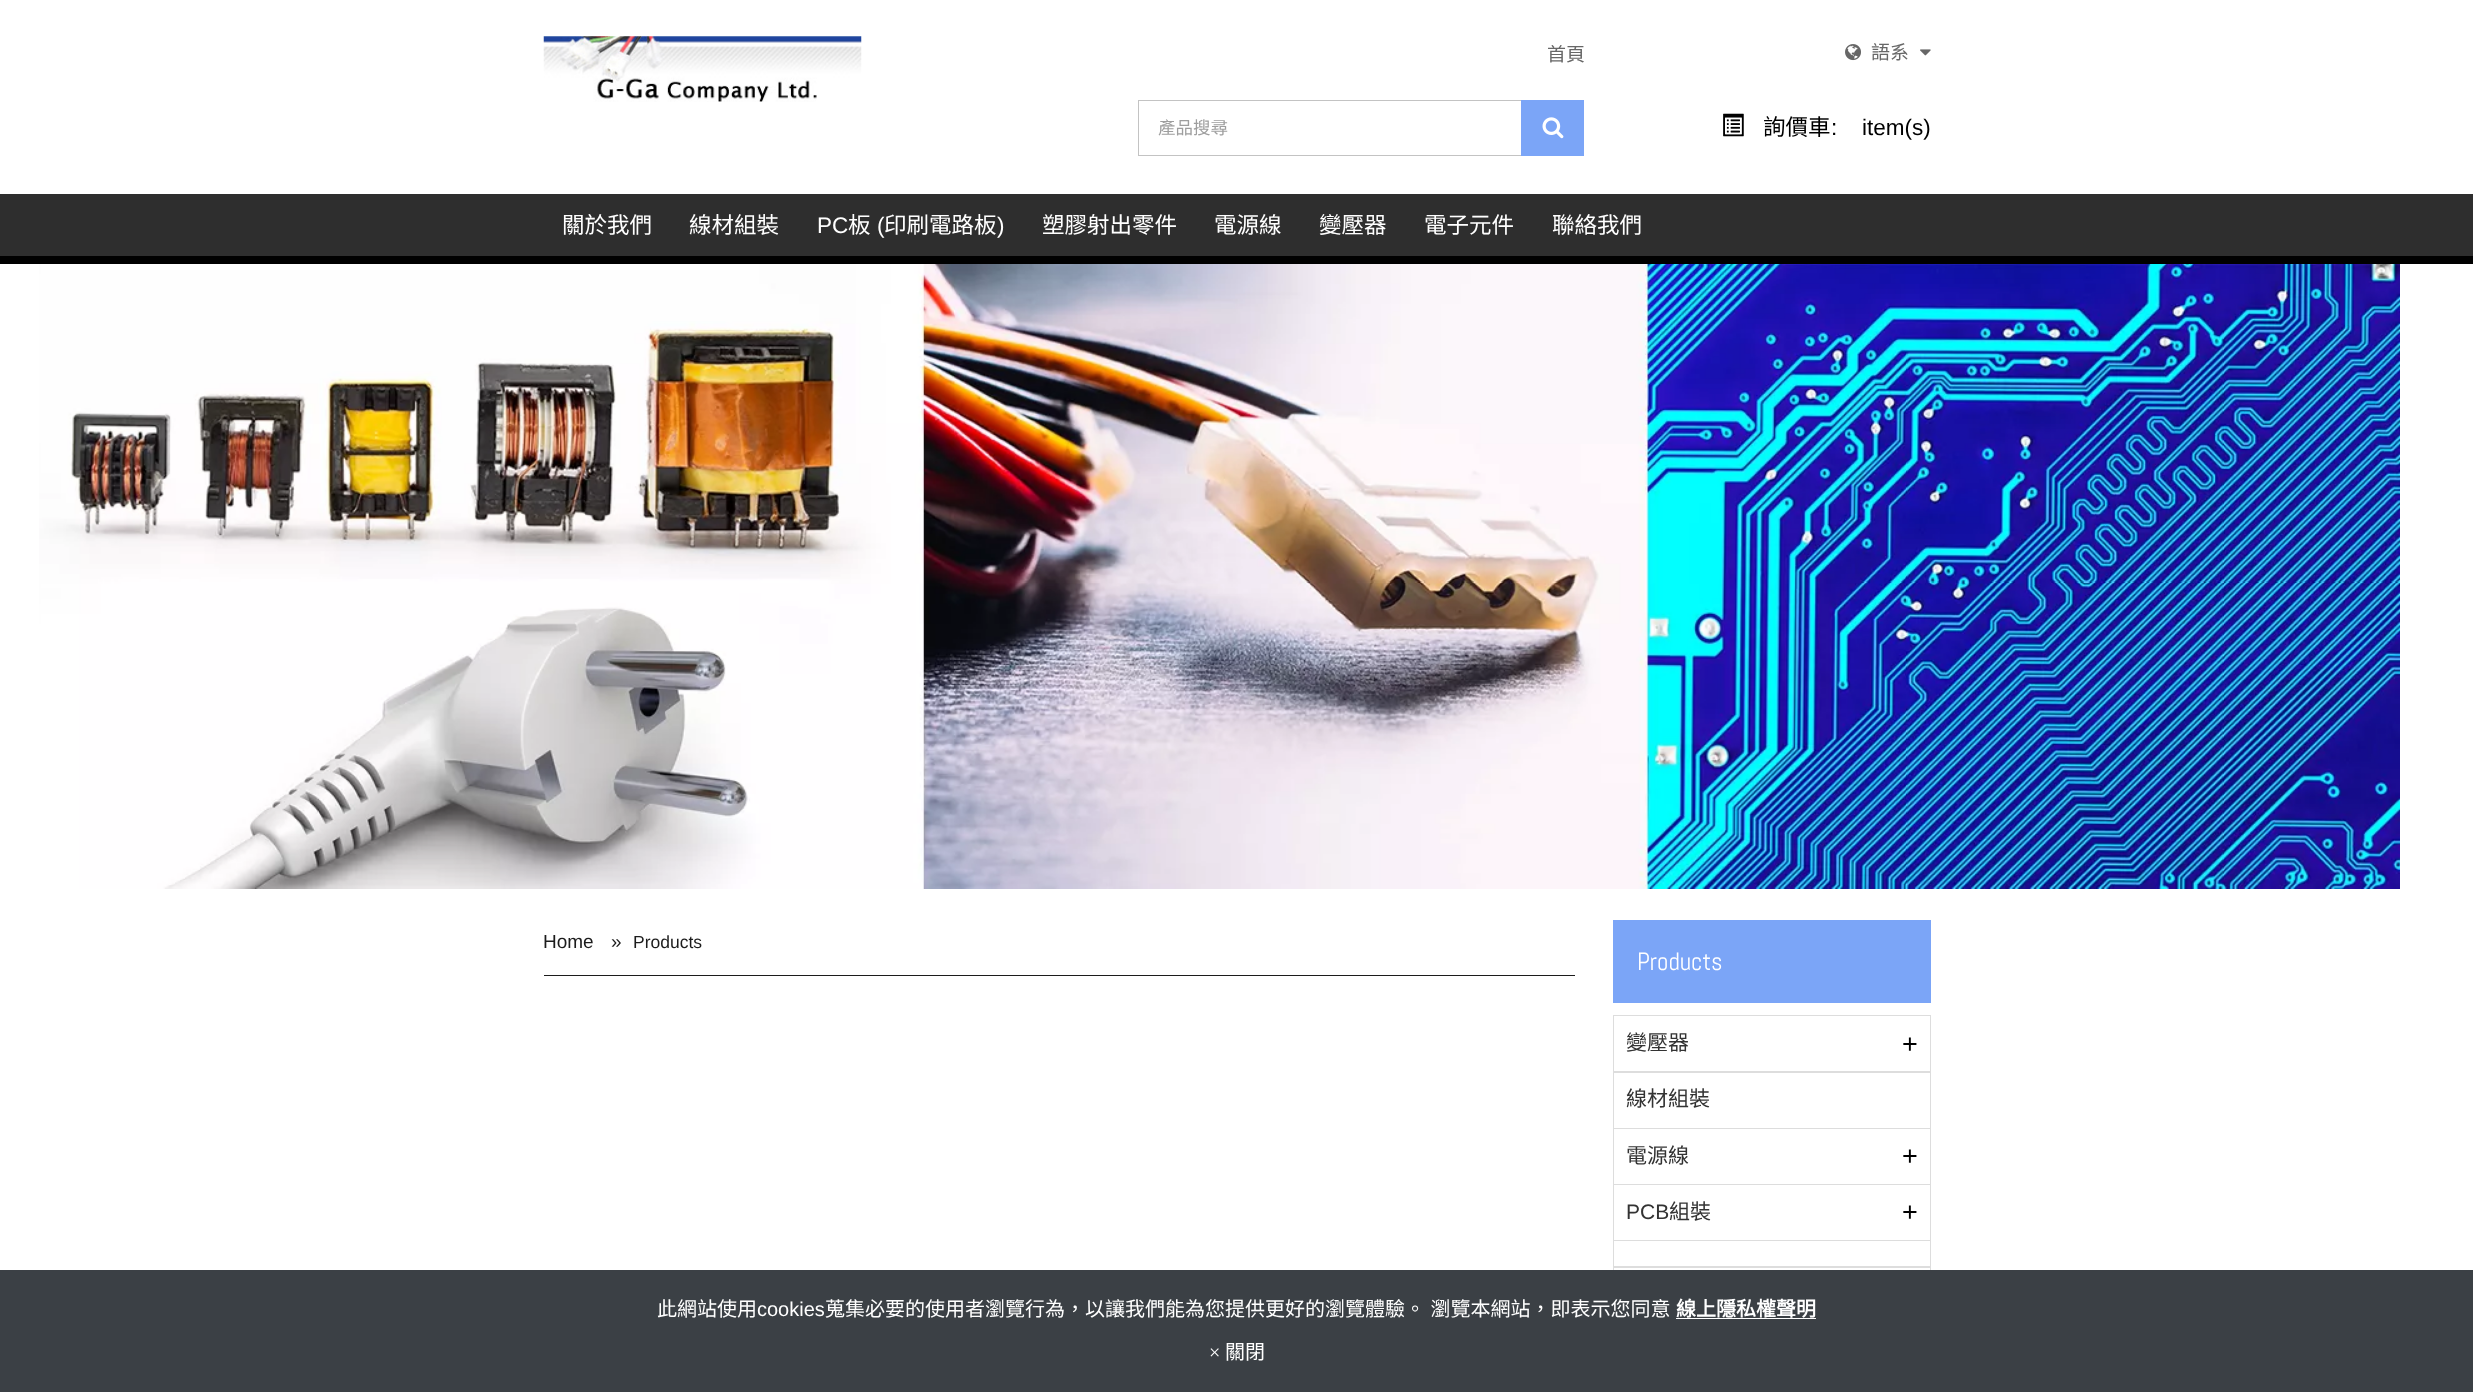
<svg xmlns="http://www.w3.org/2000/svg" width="2473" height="1392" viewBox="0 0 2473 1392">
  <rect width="100%" height="100%" fill="#ffffff"/>
  <image x="543" y="36" width="319" height="66" href="img1.png"/>
  <text x="1547" y="61" font-family="Noto Sans CJK TC" font-size="19" fill="#676767">首頁</text>
  <image x="1845" y="44" width="16" height="17" href="img2.png"/>
  <text x="1871" y="59" font-family="Noto Sans CJK TC" font-size="19" fill="#676767">語系</text>
  <image x="1920" y="49" width="11" height="7" href="img3.png"/>
  <rect x="1138" y="100" width="383" height="1" fill="#c3c3c3"/>
  <rect x="1138" y="155" width="383" height="1" fill="#c3c3c3"/>
  <rect x="1138" y="100" width="1" height="56" fill="#c3c3c3"/>
  <text x="1158" y="134" font-family="Noto Sans CJK TC" font-size="17.5" fill="#9e9e9e">產品搜尋</text>
  <rect x="1521" y="100" width="63" height="56" fill="#7ba5f7"/>
  <image x="1542" y="117" width="22" height="22" href="img4.png"/>
  <image x="1723" y="113" width="21" height="24" href="img5.png"/>
  <text x="1763" y="135" font-family="Noto Sans CJK TC" font-size="22.5" fill="#000000">詢價車</text>
  <text x="1831" y="135" font-family="Liberation Sans" font-size="22.5" fill="#000000">:</text>
  <text x="1862" y="135" font-family="Liberation Sans" font-size="22.5" fill="#000000">item(s)</text>
  <rect x="0" y="194" width="2473" height="62" fill="#2e2e2e"/>
  <rect x="0" y="256" width="2473" height="8" fill="#000000"/>
  <text x="562" y="233" font-family="Noto Sans CJK TC" font-size="22.5" fill="#ffffff">關於我們</text>
  <text x="689" y="233" font-family="Noto Sans CJK TC" font-size="22.5" fill="#ffffff">線材組裝</text>
  <text x="817" y="233" font-family="Liberation Sans" font-size="22.5" fill="#ffffff">PC</text>
  <text x="848" y="233" font-family="Noto Sans CJK TC" font-size="22.5" fill="#ffffff">板</text>
  <text x="877" y="233" font-family="Liberation Sans" font-size="22.5" fill="#ffffff">(</text>
  <text x="884" y="233" font-family="Noto Sans CJK TC" font-size="22.5" fill="#ffffff">印刷電路板</text>
  <text x="997" y="233" font-family="Liberation Sans" font-size="22.5" fill="#ffffff">)</text>
  <text x="1042" y="233" font-family="Noto Sans CJK TC" font-size="22.5" fill="#ffffff">塑膠射出零件</text>
  <text x="1214" y="233" font-family="Noto Sans CJK TC" font-size="22.5" fill="#ffffff">電源線</text>
  <text x="1319" y="233" font-family="Noto Sans CJK TC" font-size="22.5" fill="#ffffff">變壓器</text>
  <text x="1424" y="233" font-family="Noto Sans CJK TC" font-size="22.5" fill="#ffffff">電子元件</text>
  <text x="1552" y="233" font-family="Noto Sans CJK TC" font-size="22.5" fill="#ffffff">聯絡我們</text>
  <image x="39" y="264" width="2361" height="625" href="img6.png"/>
  <rect x="544" y="975" width="1031" height="1" fill="#1c1c1c"/>
  <text x="543" y="948" font-family="Liberation Sans" font-size="19" fill="#1c1c1c">Home</text>
  <text x="611" y="948" font-family="Liberation Sans" font-size="19" fill="#1c1c1c">»</text>
  <text x="633" y="948" font-family="Liberation Sans" font-size="17.5" fill="#1c1c1c">Products</text>
  <rect x="1613" y="920" width="318" height="83" fill="#7ba5f7"/>
  <text x="1637" y="970" font-family="Abel" font-size="25" fill="#ffffff">Products</text>
  <rect x="1613.5" y="1015.5" width="317" height="57" fill="none" stroke="#dddddd"/>
  <text x="1626" y="1050" font-family="Noto Sans CJK TC" font-size="21" fill="#333333">變壓器</text>
  <text x="1902" y="1053" font-family="Liberation Sans" font-size="27" fill="#000000">+</text>
  <rect x="1613.5" y="1071.5" width="317" height="57" fill="none" stroke="#dddddd"/>
  <text x="1626" y="1106" font-family="Noto Sans CJK TC" font-size="21" fill="#333333">線材組裝</text>
  <rect x="1613.5" y="1128.5" width="317" height="56" fill="none" stroke="#dddddd"/>
  <text x="1626" y="1163" font-family="Noto Sans CJK TC" font-size="21" fill="#333333">電源線</text>
  <text x="1902" y="1165" font-family="Liberation Sans" font-size="27" fill="#000000">+</text>
  <rect x="1613.5" y="1184.5" width="317" height="56" fill="none" stroke="#dddddd"/>
  <text x="1626" y="1219" font-family="Liberation Sans" font-size="21" fill="#333333">PCB</text>
  <text x="1669" y="1219" font-family="Noto Sans CJK TC" font-size="21" fill="#333333">組裝</text>
  <text x="1902" y="1221" font-family="Liberation Sans" font-size="27" fill="#000000">+</text>
  <rect x="1613.5" y="1240.5" width="317" height="27" fill="none" stroke="#dddddd"/>
  <rect x="1613.5" y="1266.5" width="317" height="27" fill="none" stroke="#dddddd"/>
  <rect x="0" y="1270" width="2473" height="122" fill="#3b4045"/>
  <text x="657" y="1316" font-family="Noto Sans CJK TC" font-size="20" fill="#ffffff">此網站使用</text>
  <text x="757" y="1316" font-family="Liberation Sans" font-size="20" fill="#ffffff">cookies</text>
  <text x="825" y="1316" word-spacing="1" font-family="Noto Sans CJK TC" font-size="20" fill="#ffffff">蒐集必要的使用者瀏覽行為，以讓我們能為您提供更好的瀏覽體驗。 瀏覽本網站，即表示您同意</text>
  <text x="1676" y="1316" font-family="Noto Sans CJK TC" font-size="20" font-weight="bold" fill="#ffffff">線上隱私權聲明</text>
  <rect x="1676" y="1318" width="140" height="1" fill="#ffffff"/>
  <text x="1209" y="1359" font-family="Liberation Serif" font-size="20" fill="#ffffff">×</text>
  <text x="1225" y="1359" font-family="Noto Sans CJK TC" font-size="20" fill="#ffffff">關閉</text>
</svg>
